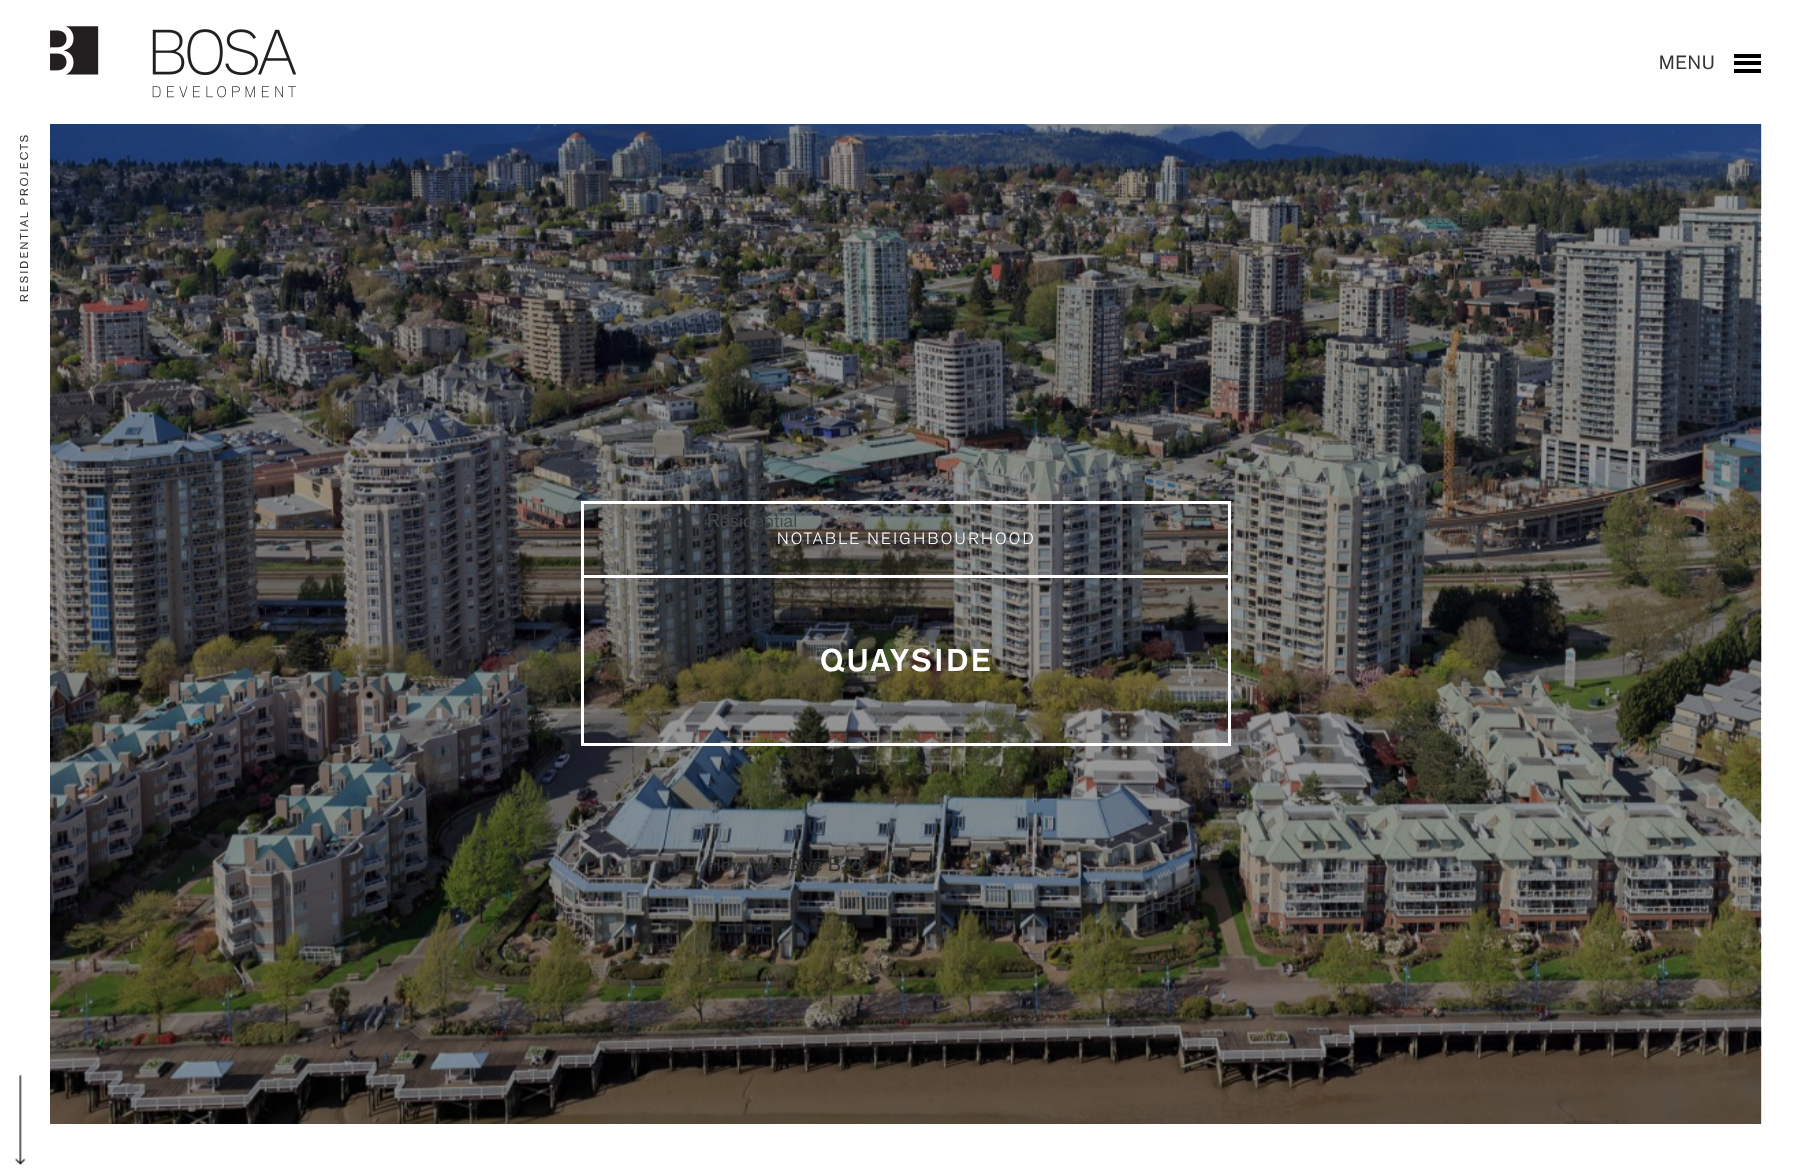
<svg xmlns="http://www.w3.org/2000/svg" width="1811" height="1173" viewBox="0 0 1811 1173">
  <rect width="100%" height="100%" fill="#ffffff"/>
  <image x="50" y="26" width="246" height="72" href="img1.png"/>
  <text x="1659" y="69" font-family="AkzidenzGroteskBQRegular" font-size="19" fill="#333333">MENU</text>
  <rect x="1734" y="54" width="27" height="4" fill="#000000"/>
  <rect x="1734" y="61" width="27" height="4" fill="#000000"/>
  <rect x="1734" y="69" width="27" height="4" fill="#000000"/>
  <text x="28" y="302" transform="rotate(-90 28 302)" font-family="AkzidenzGroteskBQRegular" font-size="11.25" letter-spacing="1.9" fill="#333333">RESIDENTIAL PROJECTS</text>
  <image x="50" y="124" width="1712" height="1000" href="img2.png"/>
  <rect x="582.5" y="502.5" width="647" height="242" fill="none" stroke="#ffffff" stroke-width="3"/>
  <text x="777" y="544" font-family="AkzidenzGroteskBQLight" font-size="16.25" font-weight="300" letter-spacing="1.9" fill="#ffffff">NOTABLE NEIGHBOURHOOD</text>
  <rect x="584" y="575" width="645" height="3" fill="#ffffff"/>
  <text x="820" y="671" font-family="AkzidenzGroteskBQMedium" font-size="31.25" font-weight="500" letter-spacing="1.9" fill="#ffffff">QUAYSIDE</text>
  <image x="15" y="1074" width="11" height="91" href="img3.png"/>
  <text x="1425" y="224" font-family="AkzidenzGroteskBQRegular" font-size="13" fill="#3c4a48">CLOSE</text>
  <text x="707" y="527" font-family="AkzidenzGroteskBQRegular" font-size="19.25" fill="#43484b">Residential</text>
  <text x="707" y="871" font-family="AkzidenzGroteskBQRegular" font-size="19.25" fill="#333333">How We Give Back</text>
</svg>
